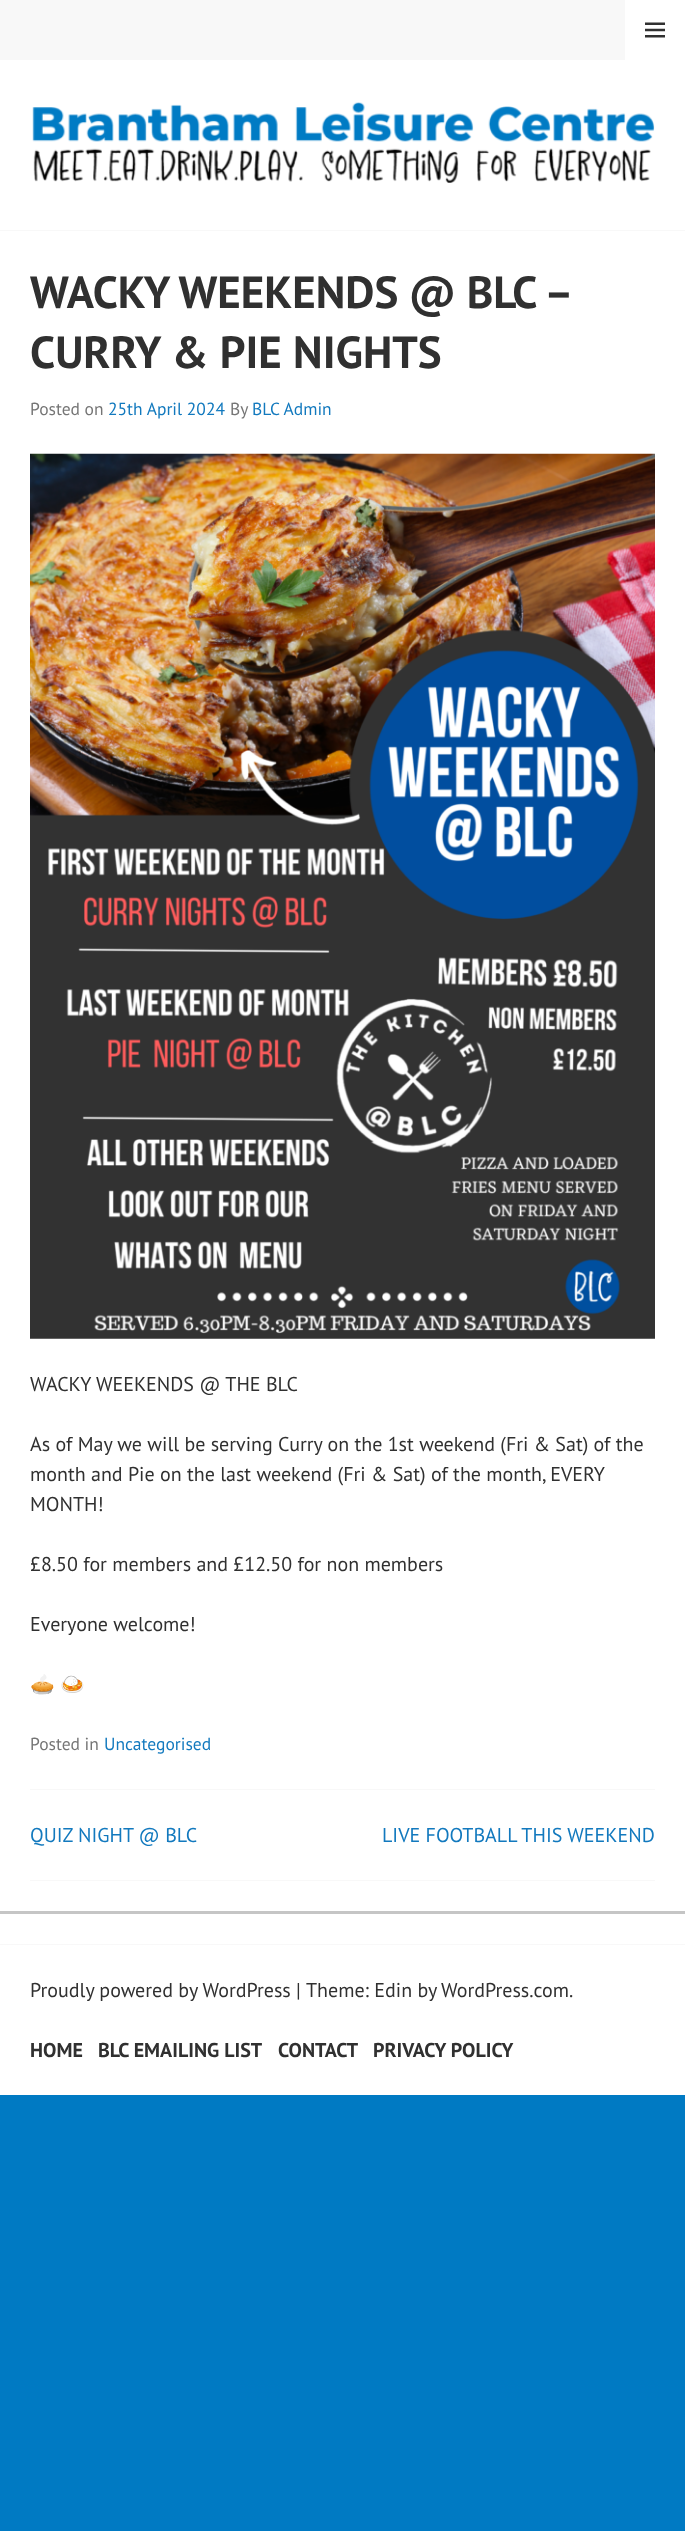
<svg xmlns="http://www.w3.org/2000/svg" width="685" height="2531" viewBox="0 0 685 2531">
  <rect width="100%" height="100%" fill="#007ac3"/>
  <rect x="0" y="60" width="685" height="170" fill="#ffffff"/>
  <rect x="0" y="230" width="685" height="1" fill="#f8f8f8"/>
  <rect x="0" y="0" width="625" height="60" fill="#f8f8f8"/>
  <rect x="625" y="0" width="60" height="60" fill="#ffffff"/>
  <image x="645" y="22" width="20" height="16" href="img1.png"/>
  <image x="32" y="102" width="623" height="81" href="img2.png"/>
  <rect x="0" y="231" width="685" height="1713" fill="#ffffff"/>
  <text x="30" y="308" word-spacing="-1" font-family="PT Sans" font-size="45" font-weight="bold" fill="#303030">WACKY WEEKENDS @ BLC –</text>
  <text x="30" y="368" font-family="PT Sans" font-size="45" font-weight="bold" fill="#303030">CURRY &amp; PIE NIGHTS</text>
  <text x="30" y="415" font-family="PT Sans" font-size="17.5" fill="#757575">Posted on</text>
  <text x="108" y="415" font-family="PT Sans" font-size="17.5" fill="#1279be">25th April 2024</text>
  <text x="230" y="415" font-family="PT Sans" font-size="17.5" fill="#757575">By</text>
  <text x="252" y="415" font-family="PT Sans" font-size="17.5" fill="#1279be">BLC Admin</text>
  <image x="30" y="453" width="625" height="886" href="img3.png"/>
  <text x="30" y="1391" font-family="PT Sans" font-size="20" fill="#303030">WACKY WEEKENDS @ THE BLC</text>
  <text x="30" y="1451" font-family="PT Sans" font-size="20" fill="#303030">As of May we will be serving Curry on the 1st weekend (Fri &amp; Sat) of the</text>
  <text x="30" y="1481" font-family="PT Sans" font-size="20" fill="#303030">month and Pie on the last weekend (Fri &amp; Sat) of the month, EVERY</text>
  <text x="30" y="1511" font-family="PT Sans" font-size="20" fill="#303030">MONTH!</text>
  <text x="30" y="1571" font-family="PT Sans" font-size="20" fill="#303030">£8.50 for members and £12.50 for non members</text>
  <text x="30" y="1631" font-family="PT Sans" font-size="20" fill="#303030">Everyone welcome!</text>
  <text x="30" y="1691" font-family="Noto Color Emoji" font-size="20" fill="#303030">🥧</text>
  <text x="60" y="1691" font-family="Noto Color Emoji" font-size="20" fill="#303030">🍛</text>
  <text x="30" y="1750" font-family="PT Sans" font-size="17.5" fill="#757575">Posted in</text>
  <text x="104" y="1750" font-family="PT Sans" font-size="17.5" fill="#1279be">Uncategorised</text>
  <rect x="30" y="1789" width="625" height="1" fill="#f8f8f8"/>
  <rect x="30" y="1880" width="625" height="1" fill="#f8f8f8"/>
  <text x="30" y="1842" font-family="PT Sans" font-size="20" fill="#1279be">QUIZ NIGHT @ BLC</text>
  <text x="382" y="1842" font-family="PT Sans" font-size="20" fill="#1279be">LIVE FOOTBALL THIS WEEKEND</text>
  <rect x="0" y="1911" width="685" height="3" fill="#c5c5c5"/>
  <rect x="0" y="1945" width="685" height="150" fill="#ffffff"/>
  <rect x="0" y="1944" width="685" height="1" fill="#f8f8f8"/>
  <text x="30" y="1997" font-family="PT Sans" font-size="20" fill="#303030">Proudly powered by WordPress |</text>
  <text x="306" y="1997" font-family="PT Sans" font-size="20" fill="#303030">Theme: Edin by</text>
  <text x="441" y="1997" font-family="PT Sans" font-size="20" fill="#303030">WordPress.com.</text>
  <text x="30" y="2057" font-family="PT Sans" font-size="20" font-weight="bold" fill="#303030">HOME</text>
  <text x="98" y="2057" font-family="PT Sans" font-size="20" font-weight="bold" fill="#303030">BLC EMAILING LIST</text>
  <text x="278" y="2057" font-family="PT Sans" font-size="20" font-weight="bold" fill="#303030">CONTACT</text>
  <text x="373" y="2057" font-family="PT Sans" font-size="20" font-weight="bold" fill="#303030">PRIVACY POLICY</text>
</svg>
